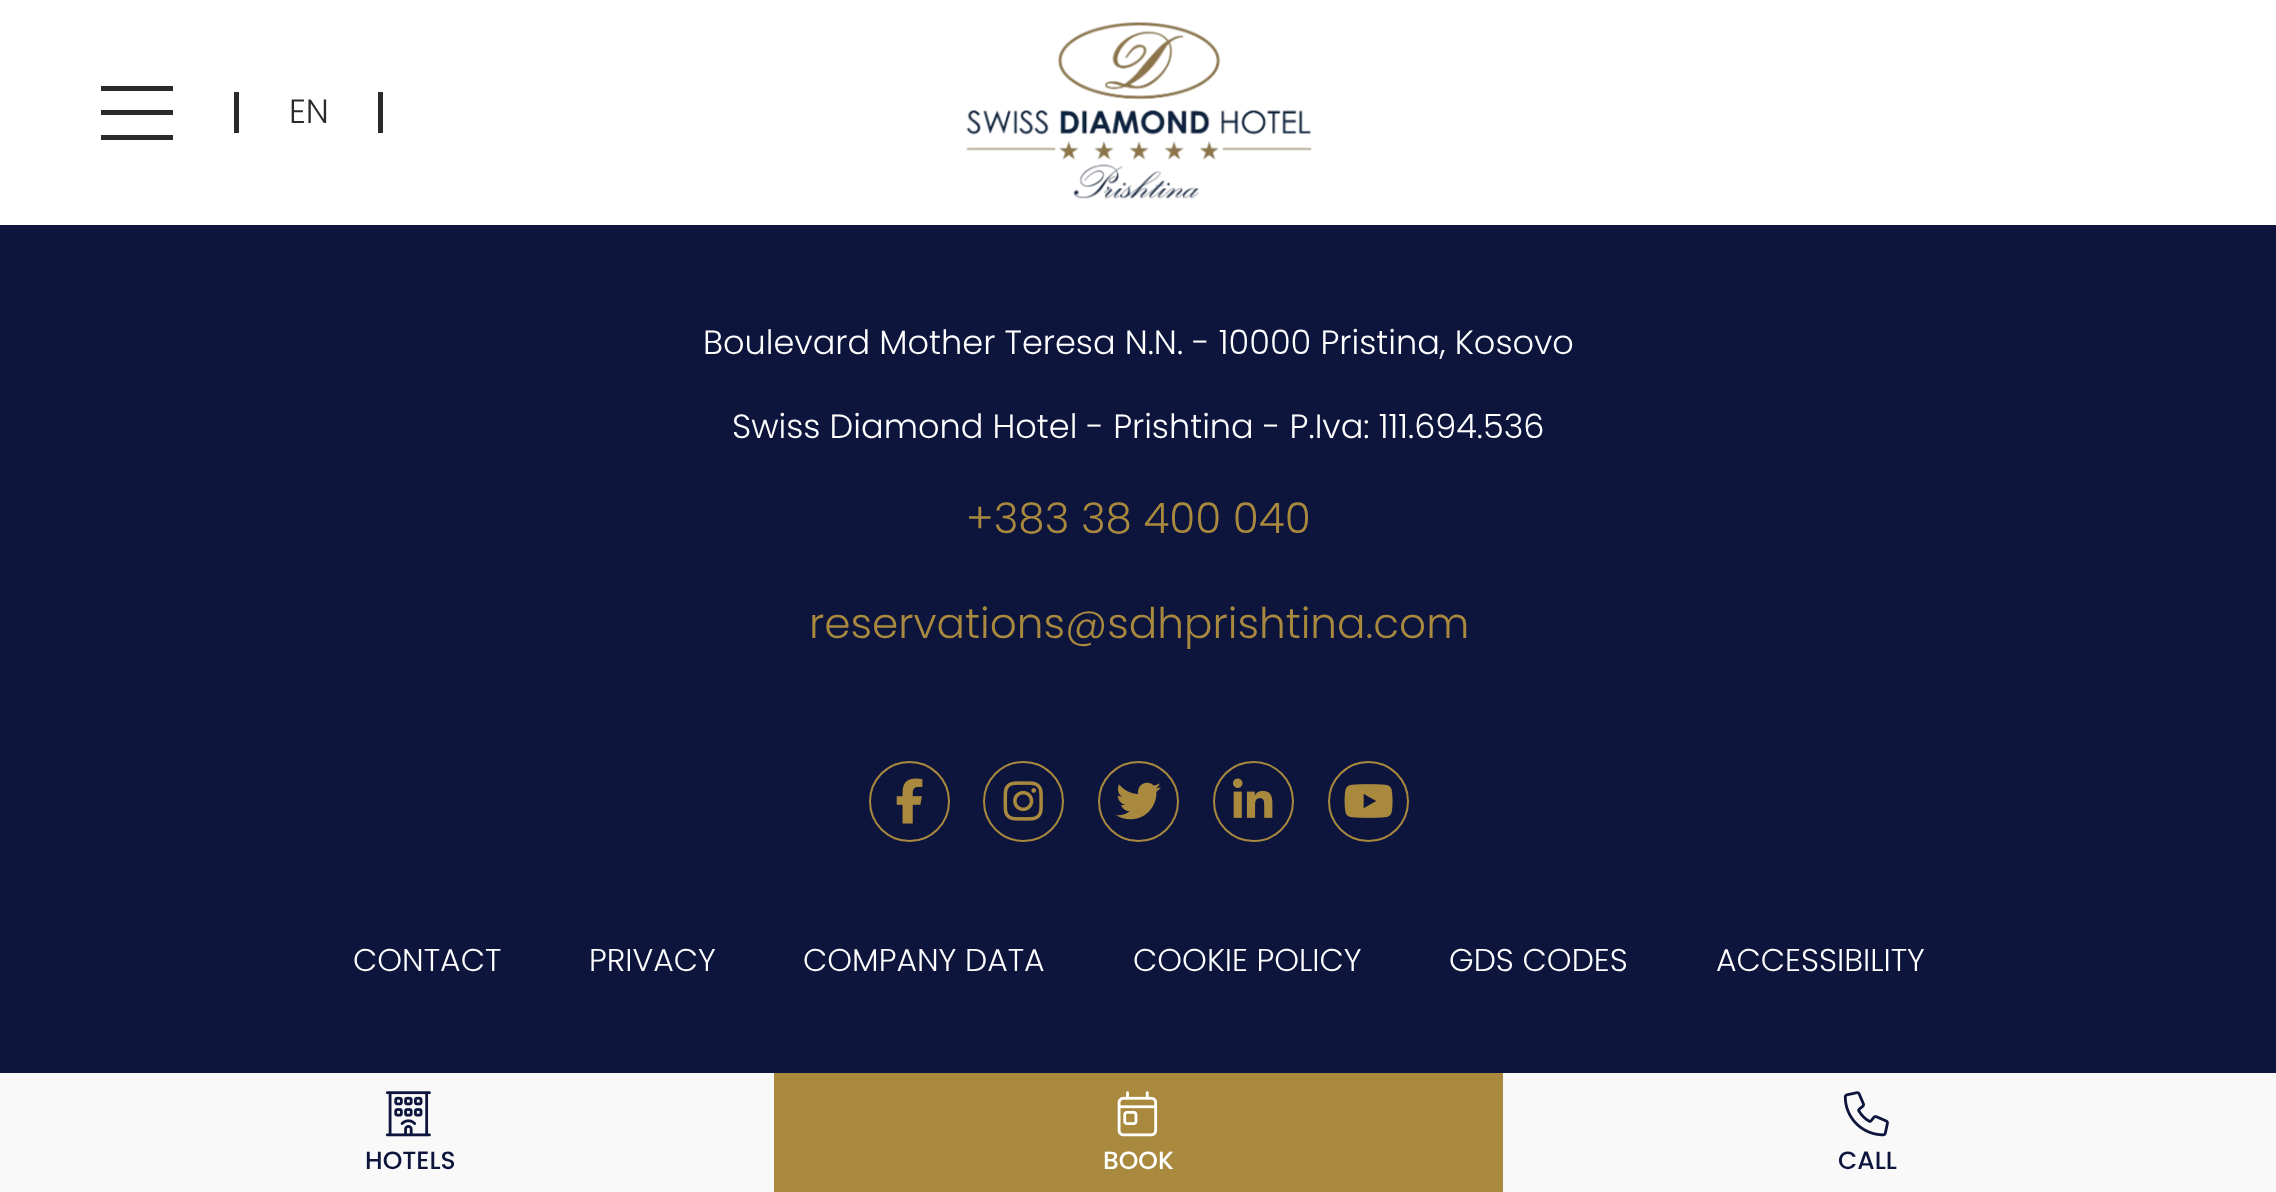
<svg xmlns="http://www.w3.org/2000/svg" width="2276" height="1192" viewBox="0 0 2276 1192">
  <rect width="100%" height="100%" fill="#0d153d"/>
  <rect x="0" y="0" width="2276" height="225" fill="#ffffff"/>
  <rect x="101" y="86" width="72" height="5" fill="#2a2a2a"/>
  <rect x="101" y="110" width="72" height="5" fill="#2a2a2a"/>
  <rect x="101" y="135" width="72" height="5" fill="#2a2a2a"/>
  <rect x="378" y="92" width="5" height="41" fill="#2a2a2a"/>
  <rect x="234" y="92" width="5" height="41" fill="#2a2a2a"/>
  <text x="289" y="123" font-family="Poppins" font-size="33.55" font-weight="300" fill="#2a2a2a">EN</text>
  <image x="966" y="22" width="346" height="177" href="img1.png"/>
  <text x="703" y="354" font-family="Poppins" font-size="33.55" font-weight="300" fill="#ffffff">Boulevard Mother Teresa N.N. - 10000 Pristina, Kosovo</text>
  <text x="732" y="438" font-family="Poppins" font-size="33.55" font-weight="300" fill="#ffffff">Swiss Diamond Hotel - Prishtina</text>
  <text x="1263" y="438" font-family="Poppins" font-size="33.55" font-weight="300" fill="#ffffff">- P.Iva: 111.694.536</text>
  <text x="966" y="533" font-family="Poppins" font-size="42.2" font-weight="300" fill="#a9893e">+383 38 400 040</text>
  <text x="809" y="638" font-family="Poppins" font-size="42.2" font-weight="300" fill="#a9893e">reservations@sdhprishtina.com</text>
  <circle cx="909.5" cy="801.5" r="39.5" fill="none" stroke="#a9893e" stroke-width="2"/>
  <image x="896" y="778" width="27" height="46" href="img2.png"/>
  <circle cx="1023.5" cy="801.5" r="39.5" fill="none" stroke="#a9893e" stroke-width="2"/>
  <image x="1003" y="781" width="40" height="40" href="img3.png"/>
  <circle cx="1138.5" cy="801.5" r="39.5" fill="none" stroke="#a9893e" stroke-width="2"/>
  <image x="1116" y="782" width="45" height="38" href="img4.png"/>
  <circle cx="1253.5" cy="801.5" r="39.5" fill="none" stroke="#a9893e" stroke-width="2"/>
  <image x="1233" y="778" width="40" height="40" href="img5.png"/>
  <circle cx="1368.5" cy="801.5" r="39.5" fill="none" stroke="#a9893e" stroke-width="2"/>
  <image x="1344" y="784" width="49" height="34" href="img6.png"/>
  <text x="353" y="971" font-family="Poppins" font-size="31.5" font-weight="300" fill="#ffffff">CONTACT</text>
  <text x="589" y="971" font-family="Poppins" font-size="31.5" font-weight="300" fill="#ffffff">PRIVACY</text>
  <text x="803" y="971" font-family="Poppins" font-size="31.5" font-weight="300" fill="#ffffff">COMPANY DATA</text>
  <text x="1133" y="971" font-family="Poppins" font-size="31.5" font-weight="300" fill="#ffffff">COOKIE POLICY</text>
  <text x="1449" y="971" font-family="Poppins" font-size="31.5" font-weight="300" fill="#ffffff">GDS CODES</text>
  <text x="1716" y="971" font-family="Poppins" font-size="31.5" font-weight="300" fill="#ffffff">ACCESSIBILITY</text>
  <rect x="0" y="1073" width="2276" height="119" fill="#f9f9f9"/>
  <image x="385" y="1091" width="46" height="46" href="img7.png"/>
  <text x="365" y="1169" font-family="Poppins" font-size="25" font-weight="500" fill="#0d153d">HOTELS</text>
  <rect x="774" y="1073" width="729" height="119" fill="#a9893e"/>
  <image x="1117" y="1091" width="41" height="46" href="img8.png"/>
  <text x="1103" y="1169" font-family="Poppins" font-size="25" font-weight="500" fill="#ffffff">BOOK</text>
  <image x="1843" y="1091" width="46" height="46" href="img9.png"/>
  <text x="1838" y="1169" font-family="Poppins" font-size="25" font-weight="500" fill="#0d153d">CALL</text>
</svg>
